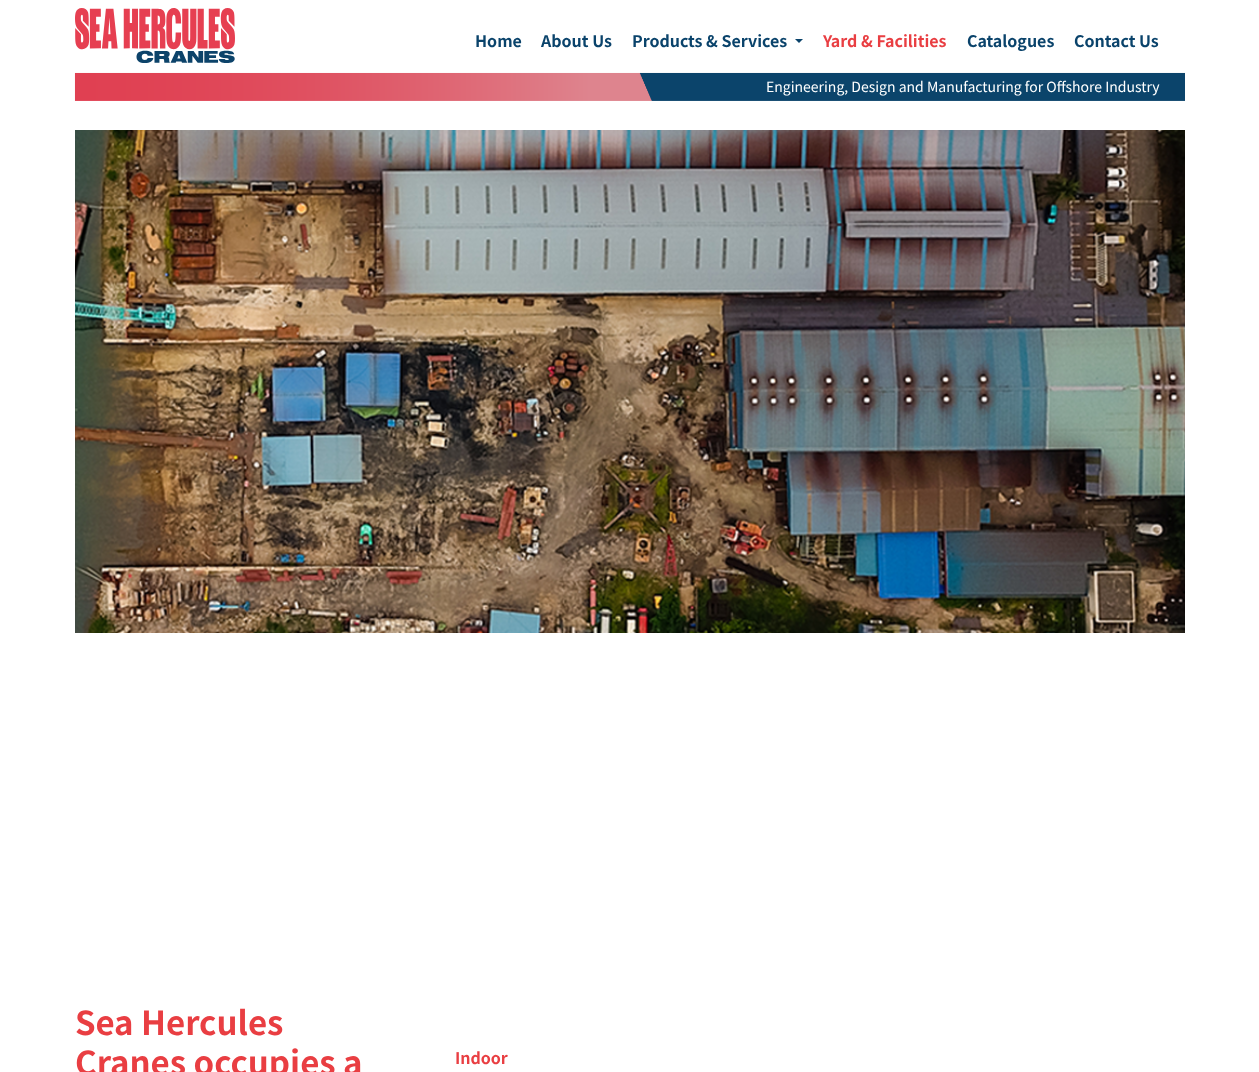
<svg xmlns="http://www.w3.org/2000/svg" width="1259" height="1072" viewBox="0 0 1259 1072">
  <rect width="100%" height="100%" fill="#ffffff"/>
  <image x="75" y="8" width="160" height="55" href="img1.png"/>
  <text x="475" y="47" font-family="Noto Sans TC" font-size="16" font-weight="bold" fill="#0a436b">Home</text>
  <text x="541" y="47" font-family="Noto Sans TC" font-size="16" font-weight="bold" fill="#0a436b">About Us</text>
  <text x="632" y="47" font-family="Noto Sans TC" font-size="16" font-weight="bold" fill="#0a436b">Products &amp; Services</text>
  <path d="M795 39H803L799 43Z" fill="#0a436b"/>
  <text x="823" y="47" font-family="Noto Sans TC" font-size="16" font-weight="bold" fill="#e93e42">Yard &amp; Facilities</text>
  <text x="967" y="47" font-family="Noto Sans TC" font-size="16" font-weight="bold" fill="#0a436b">Catalogues</text>
  <text x="1074" y="47" font-family="Noto Sans TC" font-size="16" font-weight="bold" fill="#0a436b">Contact Us</text>
  <image x="74" y="72" width="1111" height="29" href="img2.png"/>
  <text x="766" y="92" font-family="Noto Sans TC" font-size="14" fill="#ffffff">Engineering, Design and Manufacturing for Offshore Industry</text>
  <image x="75" y="130" width="1110" height="503" href="img3.png"/>
  <text x="75" y="1035" font-family="Noto Sans TC" font-size="33" font-weight="bold" fill="#e93e42">Sea Hercules</text>
  <text x="75" y="1075" font-family="Noto Sans TC" font-size="33" font-weight="bold" fill="#e93e42">Cranes occupies a</text>
  <text x="455" y="1064" font-family="Noto Sans TC" font-size="16" font-weight="bold" fill="#e93e42">Indoor</text>
</svg>
